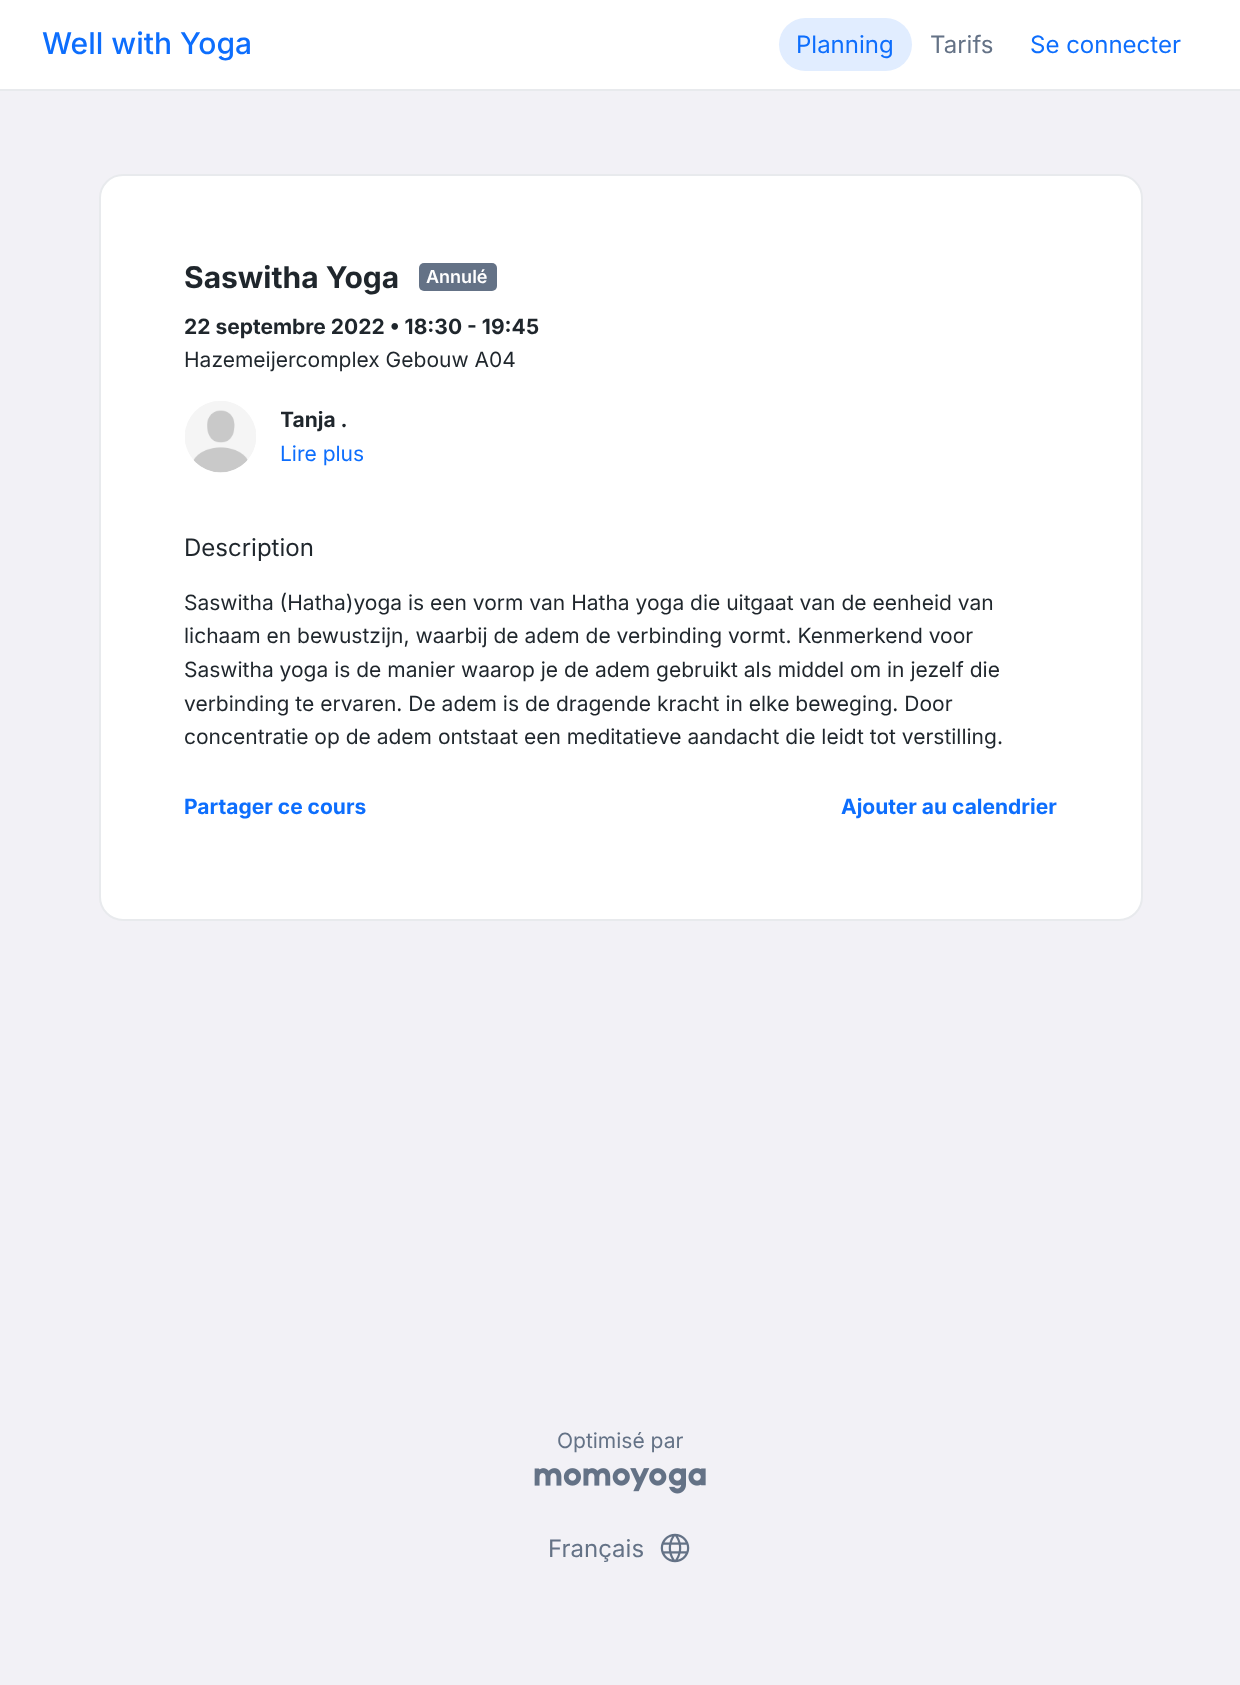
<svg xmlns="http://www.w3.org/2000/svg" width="1240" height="1685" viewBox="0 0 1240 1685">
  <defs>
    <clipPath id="clip1"><rect x="281" y="404" width="777" height="67"/></clipPath>
  </defs>
  <rect width="100%" height="100%" fill="#f2f1f6"/>
  <rect x="0" y="0" width="1240" height="89" fill="#ffffff"/>
  <rect x="0" y="89" width="1240" height="2" fill="#e8eaed"/>
  <text x="42" y="54" font-family="Inter" font-size="30" font-weight="500" fill="#0d6efd">Well with Yoga</text>
  <rect x="779" y="18" width="133" height="53" rx="26.5" fill="#e1edff"/>
  <text x="796" y="53" font-family="Inter" font-size="24" fill="#0d6efd">Planning</text>
  <text x="930" y="53" font-family="Inter" font-size="24" fill="#647286">Tarifs</text>
  <text x="1030" y="53" font-family="Inter" font-size="24" fill="#0d6efd">Se connecter</text>
  <rect x="100" y="175" width="1042" height="745" rx="23" fill="#ffffff" stroke="#e8eaed" stroke-width="2"/>
  <text x="184" y="288" font-family="Inter" font-size="30" font-weight="bold" fill="#1f262c">Saswitha Yoga</text>
  <rect x="419" y="263" width="78" height="28" rx="5" fill="#647286"/>
  <text x="426" y="283" font-family="Inter" font-size="18" font-weight="600" fill="#ffffff">Annulé</text>
  <text x="184" y="334" font-family="Inter" font-size="21" font-weight="bold" fill="#1f262c">22 septembre 2022 • 18:30 - 19:45</text>
  <text x="184" y="367" font-family="Inter" font-size="21" fill="#1f262c">Hazemeijercomplex Gebouw A04</text>
  <image x="185" y="401" width="71" height="72" href="img1.png"/>
  <g clip-path="url(#clip1)">
    <text x="280" y="427" font-family="Inter" font-size="21" font-weight="bold" fill="#1f262c">Tanja .</text>
  </g>
  <text x="280" y="461" font-family="Inter" font-size="21" fill="#0d6efd">Lire plus</text>
  <text x="184" y="556" font-family="Inter" font-size="24" fill="#1f262c">Description</text>
  <text x="184" y="610" font-family="Inter" font-size="21" fill="#1f262c">Saswitha (Hatha)yoga is een vorm van Hatha yoga die uitgaat van de eenheid van</text>
  <text x="184" y="643" font-family="Inter" font-size="21" fill="#1f262c">lichaam en bewustzijn, waarbij de adem de verbinding vormt. Kenmerkend voor</text>
  <text x="184" y="677" font-family="Inter" font-size="21" fill="#1f262c">Saswitha yoga is de manier waarop je de adem gebruikt als middel om in jezelf die</text>
  <text x="184" y="711" font-family="Inter" font-size="21" fill="#1f262c">verbinding te ervaren. De adem is de dragende kracht in elke beweging. Door</text>
  <text x="184" y="744" font-family="Inter" font-size="21" fill="#1f262c">concentratie op de adem ontstaat een meditatieve aandacht die leidt tot verstilling.</text>
  <text x="184" y="814" font-family="Inter" font-size="21" font-weight="bold" fill="#0d6efd">Partager ce cours</text>
  <text x="841" y="814" font-family="Inter" font-size="21" font-weight="bold" fill="#0d6efd">Ajouter au calendrier</text>
  <text x="557" y="1448" font-family="Inter" font-size="21" fill="#647286">Optimisé par</text>
  <image x="534" y="1468" width="172" height="26" href="img2.png"/>
  <text x="548" y="1557" font-family="Inter" font-size="24" fill="#647286">Français</text>
  <image x="660" y="1533" width="30" height="30" href="img3.png"/>
</svg>
